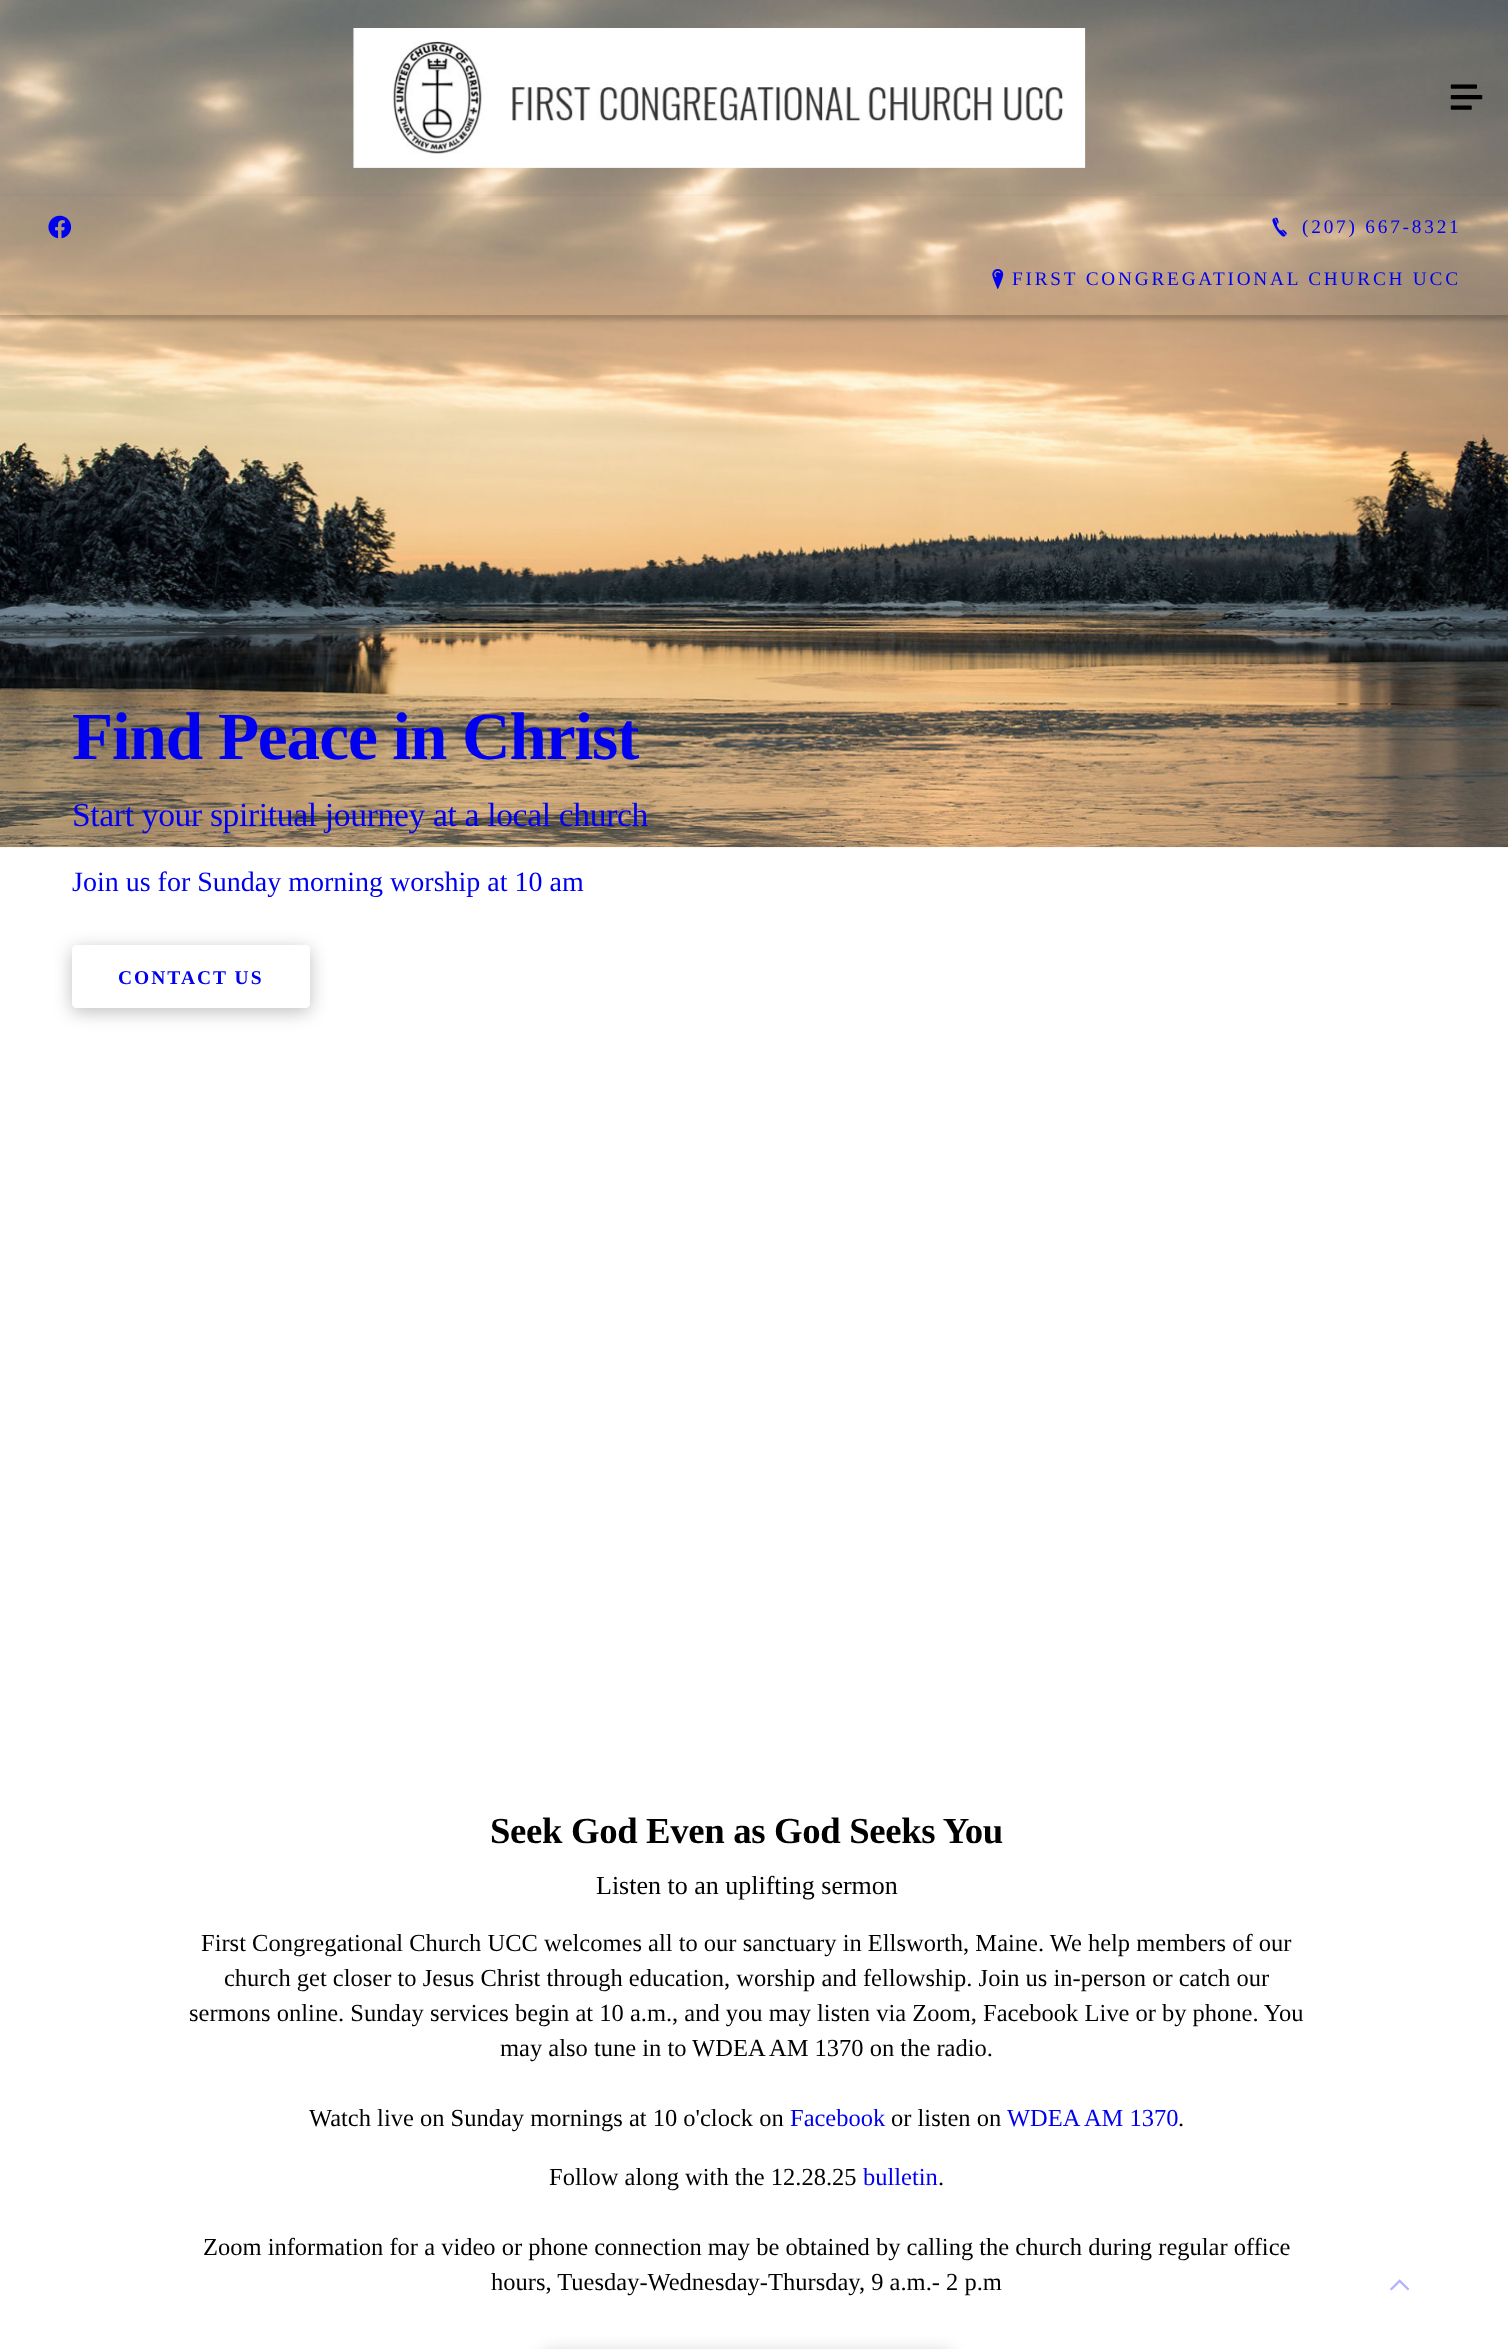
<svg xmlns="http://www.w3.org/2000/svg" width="1508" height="2349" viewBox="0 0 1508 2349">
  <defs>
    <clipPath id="clip1"><path d="M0 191H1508V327H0ZM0 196H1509V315H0Z" clip-rule="evenodd"/></clipPath>
    <filter id="blur1" x="-50%" y="-200%" width="200%" height="500%"><feGaussianBlur stdDeviation="2"/></filter>
    <clipPath id="clip2"><path d="M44 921H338V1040H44ZM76 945H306C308 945 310 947 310 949V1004C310 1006 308 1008 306 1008H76C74 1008 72 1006 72 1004V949C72 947 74 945 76 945Z" clip-rule="evenodd"/></clipPath>
    <filter id="blur2" x="-50%" y="-200%" width="200%" height="500%"><feGaussianBlur stdDeviation="9"/></filter>
  </defs>
  <rect width="100%" height="100%" fill="#ffffff"/>
  <image x="0" y="0" width="1508" height="848" href="img6.png"/>
  <image x="353" y="28" width="733" height="140" href="img1.png"/>
  <image x="1450" y="84" width="33" height="26" href="img2.png"/>
  <g clip-path="url(#clip1)">
    <rect x="-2" y="198" width="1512" height="122" fill="#000000" fill-opacity="0.2" filter="url(#blur1)"/>
  </g>
  <image x="48" y="215" width="24" height="24" href="img3.png"/>
  <image x="1272" y="217" width="15" height="20" href="img4.png"/>
  <text x="1302" y="233" font-family="Liberation Serif" font-size="19.25" letter-spacing="2.8" fill="#0000ee">(207) 667-8321</text>
  <image x="992" y="269" width="12" height="20" href="img5.png"/>
  <text x="1012" y="285" font-family="Liberation Serif" font-size="19.25" letter-spacing="2.8" fill="#0000ee">FIRST CONGREGATIONAL CHURCH UCC</text>
  <text x="72" y="759" font-family="Liberation Serif" font-size="67.25" font-weight="bold" letter-spacing="-1.1" fill="#0000ee">Find Peace in Christ</text>
  <text x="72" y="826" font-family="Liberation Serif" font-size="33.6" letter-spacing="-0.35" fill="#0000ee">Start your spiritual journey at a local church</text>
  <text x="72" y="891" font-family="Liberation Serif" font-size="28" fill="#0000ee">Join us for Sunday morning worship at 10 am</text>
  <g clip-path="url(#clip2)">
    <rect x="72" y="949" width="238" height="63" rx="4" fill="#000000" fill-opacity="0.25" filter="url(#blur2)"/>
  </g>
  <text x="118" y="984" font-family="Liberation Serif" font-size="19.5" font-weight="bold" letter-spacing="2" fill="#0000ee">CONTACT US</text>
  <text x="490" y="1843" font-family="Liberation Serif" font-size="36.75" font-weight="bold" letter-spacing="-0.35" fill="#000000">Seek God Even as God Seeks You</text>
  <text x="596" y="1894" font-family="Liberation Serif" font-size="26" fill="#000000">Listen to an uplifting sermon</text>
  <text x="201" y="1951" font-family="Liberation Serif" font-size="24.5" fill="#000000">First Congregational Church UCC welcomes all to our sanctuary in Ellsworth, Maine. We help members of our</text>
  <text x="224" y="1986" font-family="Liberation Serif" font-size="24.5" fill="#000000">church get closer to Jesus Christ through education, worship and fellowship. Join us in-person or catch our</text>
  <text x="189" y="2021" font-family="Liberation Serif" font-size="24.5" fill="#000000">sermons online. Sunday services begin at 10 a.m., and you may listen via Zoom, Facebook Live or by phone. You</text>
  <text x="500" y="2056" font-family="Liberation Serif" font-size="24.5" fill="#000000">may also tune in to WDEA AM 1370 on the radio.</text>
  <text x="309" y="2126" font-family="Liberation Serif" font-size="24.5" fill="#000000">Watch live on Sunday mornings at 10 o'clock on</text>
  <text x="790" y="2126" font-family="Liberation Serif" font-size="24.5" fill="#0000ee">Facebook</text>
  <text x="891" y="2126" font-family="Liberation Serif" font-size="24.5" fill="#000000">or listen on</text>
  <text x="1007" y="2126" font-family="Liberation Serif" font-size="24.5" fill="#0000ee">WDEA AM 1370</text>
  <text x="1178" y="2126" font-family="Liberation Serif" font-size="24.5" fill="#000000">.</text>
  <text x="549" y="2185" font-family="Liberation Serif" font-size="24.5" fill="#000000">Follow along with the 12.28.25</text>
  <text x="863" y="2185" font-family="Liberation Serif" font-size="24.5" fill="#0000ee">bulletin</text>
  <text x="938" y="2185" font-family="Liberation Serif" font-size="24.5" fill="#000000">.</text>
  <text x="203" y="2255" font-family="Liberation Serif" font-size="24.5" fill="#000000">Zoom information for a video or phone connection may be obtained by calling the church during regular office</text>
  <text x="491" y="2290" font-family="Liberation Serif" font-size="24.5" fill="#000000">hours, Tuesday-Wednesday-Thursday, 9 a.m.- 2 p.m</text>
  <rect x="543" y="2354" width="409" height="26" rx="4" fill="#000000" fill-opacity="0.25" filter="url(#blur2)"/>
  <text x="1390" y="2295" font-family="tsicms" font-size="25" fill="#b3b3fa">+</text>
</svg>
